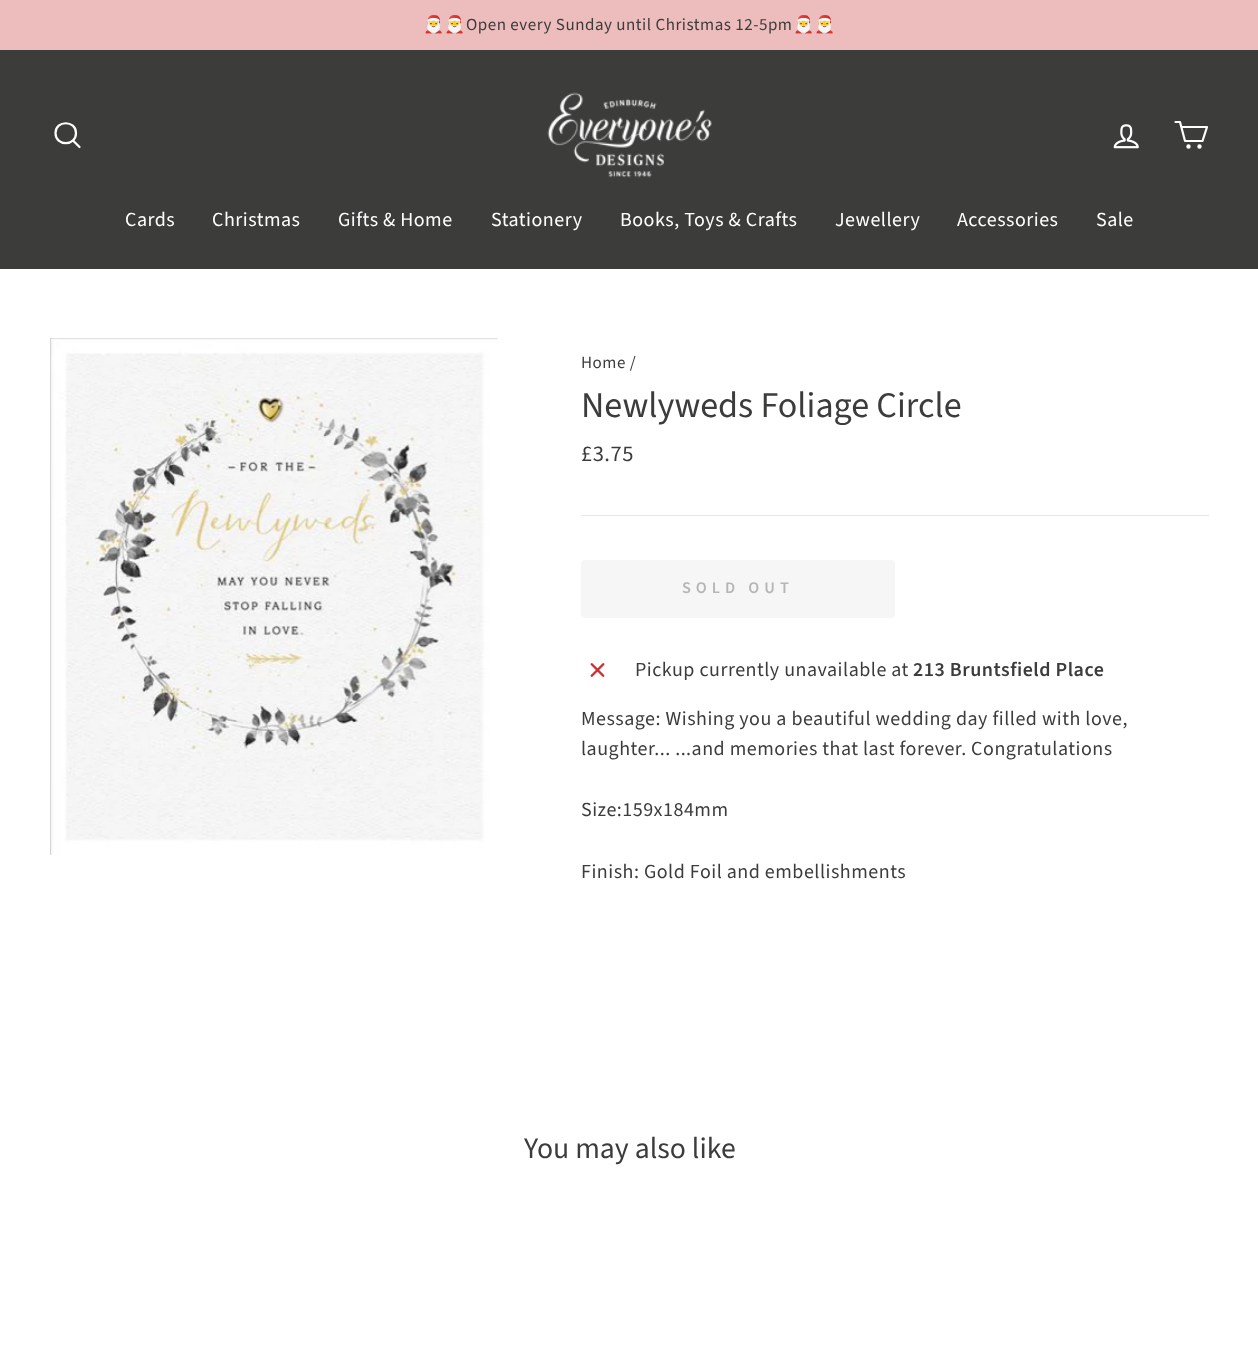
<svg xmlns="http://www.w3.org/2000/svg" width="1258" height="1349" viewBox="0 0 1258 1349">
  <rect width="100%" height="100%" fill="#ffffff"/>
  <rect x="0" y="0" width="1258" height="50" fill="#edbcbc"/>
  <text x="423" y="30" font-family="Noto Color Emoji" font-size="17" letter-spacing="0.5" fill="#3c3c3b">🎅🎅</text>
  <text x="466" y="30" font-family="Source Sans Pro" font-size="17" letter-spacing="0.5" fill="#3c3c3b">Open every Sunday until Christmas 12-5pm</text>
  <text x="793" y="30" font-family="Noto Color Emoji" font-size="17" letter-spacing="0.5" fill="#3c3c3b">🎅🎅</text>
  <rect x="0" y="50" width="1258" height="219" fill="#3c3c3b"/>
  <path d="M76 133C76 146.5 55.5 146.5 55.5 133C55.5 120 76 120 76 133ZM79.5 147L73 140.5" fill="none" stroke="#ffffff" stroke-width="2.2" stroke-linecap="round" stroke-linejoin="round"/>
  <image x="547" y="92" width="165" height="86" href="img1.png"/>
  <image x="1113" y="124" width="26" height="25" href="img2.png"/>
  <path d="M1181.5 127H1207L1202.5 141H1185L1180 122H1175.5" fill="none" stroke="#ffffff" stroke-width="2.2" stroke-linecap="round" stroke-linejoin="round"/>
  <circle cx="1188.5" cy="146.5" r="1.1" fill="none" stroke="#ffffff" stroke-width="2.2"/>
  <circle cx="1199.5" cy="146.5" r="1.1" fill="none" stroke="#ffffff" stroke-width="2.2"/>
  <text x="125" y="226" font-family="Source Sans Pro" font-size="20" letter-spacing="0.5" fill="#ffffff">Cards</text>
  <text x="212" y="226" font-family="Source Sans Pro" font-size="20" letter-spacing="0.5" fill="#ffffff">Christmas</text>
  <text x="338" y="226" font-family="Source Sans Pro" font-size="20" letter-spacing="0.5" fill="#ffffff">Gifts &amp; Home</text>
  <text x="491" y="226" font-family="Source Sans Pro" font-size="20" letter-spacing="0.5" fill="#ffffff">Stationery</text>
  <text x="620" y="226" font-family="Source Sans Pro" font-size="20" letter-spacing="0.5" fill="#ffffff">Books, Toys &amp; Crafts</text>
  <text x="835" y="226" font-family="Source Sans Pro" font-size="20" letter-spacing="0.5" fill="#ffffff">Jewellery</text>
  <text x="957" y="226" font-family="Source Sans Pro" font-size="20" letter-spacing="0.5" fill="#ffffff">Accessories</text>
  <text x="1096" y="226" font-family="Source Sans Pro" font-size="20" letter-spacing="0.5" fill="#ffffff">Sale</text>
  <image x="50" y="338" width="448" height="517" href="img3.png"/>
  <text x="581" y="368" font-family="Source Sans Pro" font-size="17" letter-spacing="0.5" fill="#3c3c3b">Home /</text>
  <text x="581" y="417" font-family="Source Sans Pro" font-size="36.1" fill="#3c3c3b">Newlyweds Foliage Circle</text>
  <text x="581" y="461" font-family="Source Sans Pro" font-size="22.5" letter-spacing="0.5" fill="#3c3c3b">£3.75</text>
  <rect x="581" y="515" width="628" height="1" fill="#e6e6e6"/>
  <rect x="581" y="560" width="314" height="58" rx="4" fill="#f6f6f6"/>
  <text x="682" y="593" font-family="Source Sans Pro" font-size="16.25" font-weight="600" letter-spacing="5" fill="#b6b6b6">SOLD OUT</text>
  <image x="590" y="663" width="15" height="14" href="img4.png"/>
  <text x="635" y="676" font-family="Source Sans Pro" font-size="20" letter-spacing="0.5" fill="#3c3c3b">Pickup currently unavailable at</text>
  <text x="913" y="676" font-family="Source Sans Pro" font-size="20" font-weight="600" letter-spacing="0.5" fill="#3c3c3b">213 Bruntsfield Place</text>
  <text x="581" y="725" font-family="Source Sans Pro" font-size="20" letter-spacing="0.5" fill="#3c3c3b">Message: Wishing you a beautiful wedding day filled with love,</text>
  <text x="581" y="755" font-family="Source Sans Pro" font-size="20" letter-spacing="0.5" fill="#3c3c3b">laughter... ...and memories that last forever. Congratulations</text>
  <text x="581" y="816" font-family="Source Sans Pro" font-size="20" letter-spacing="0.5" fill="#3c3c3b">Size:159x184mm</text>
  <text x="581" y="878" font-family="Source Sans Pro" font-size="20" letter-spacing="0.5" fill="#3c3c3b">Finish: Gold Foil and embellishments</text>
  <text x="524" y="1158" font-family="Source Sans Pro" font-size="29.75" fill="#3c3c3b">You may also like</text>
</svg>
